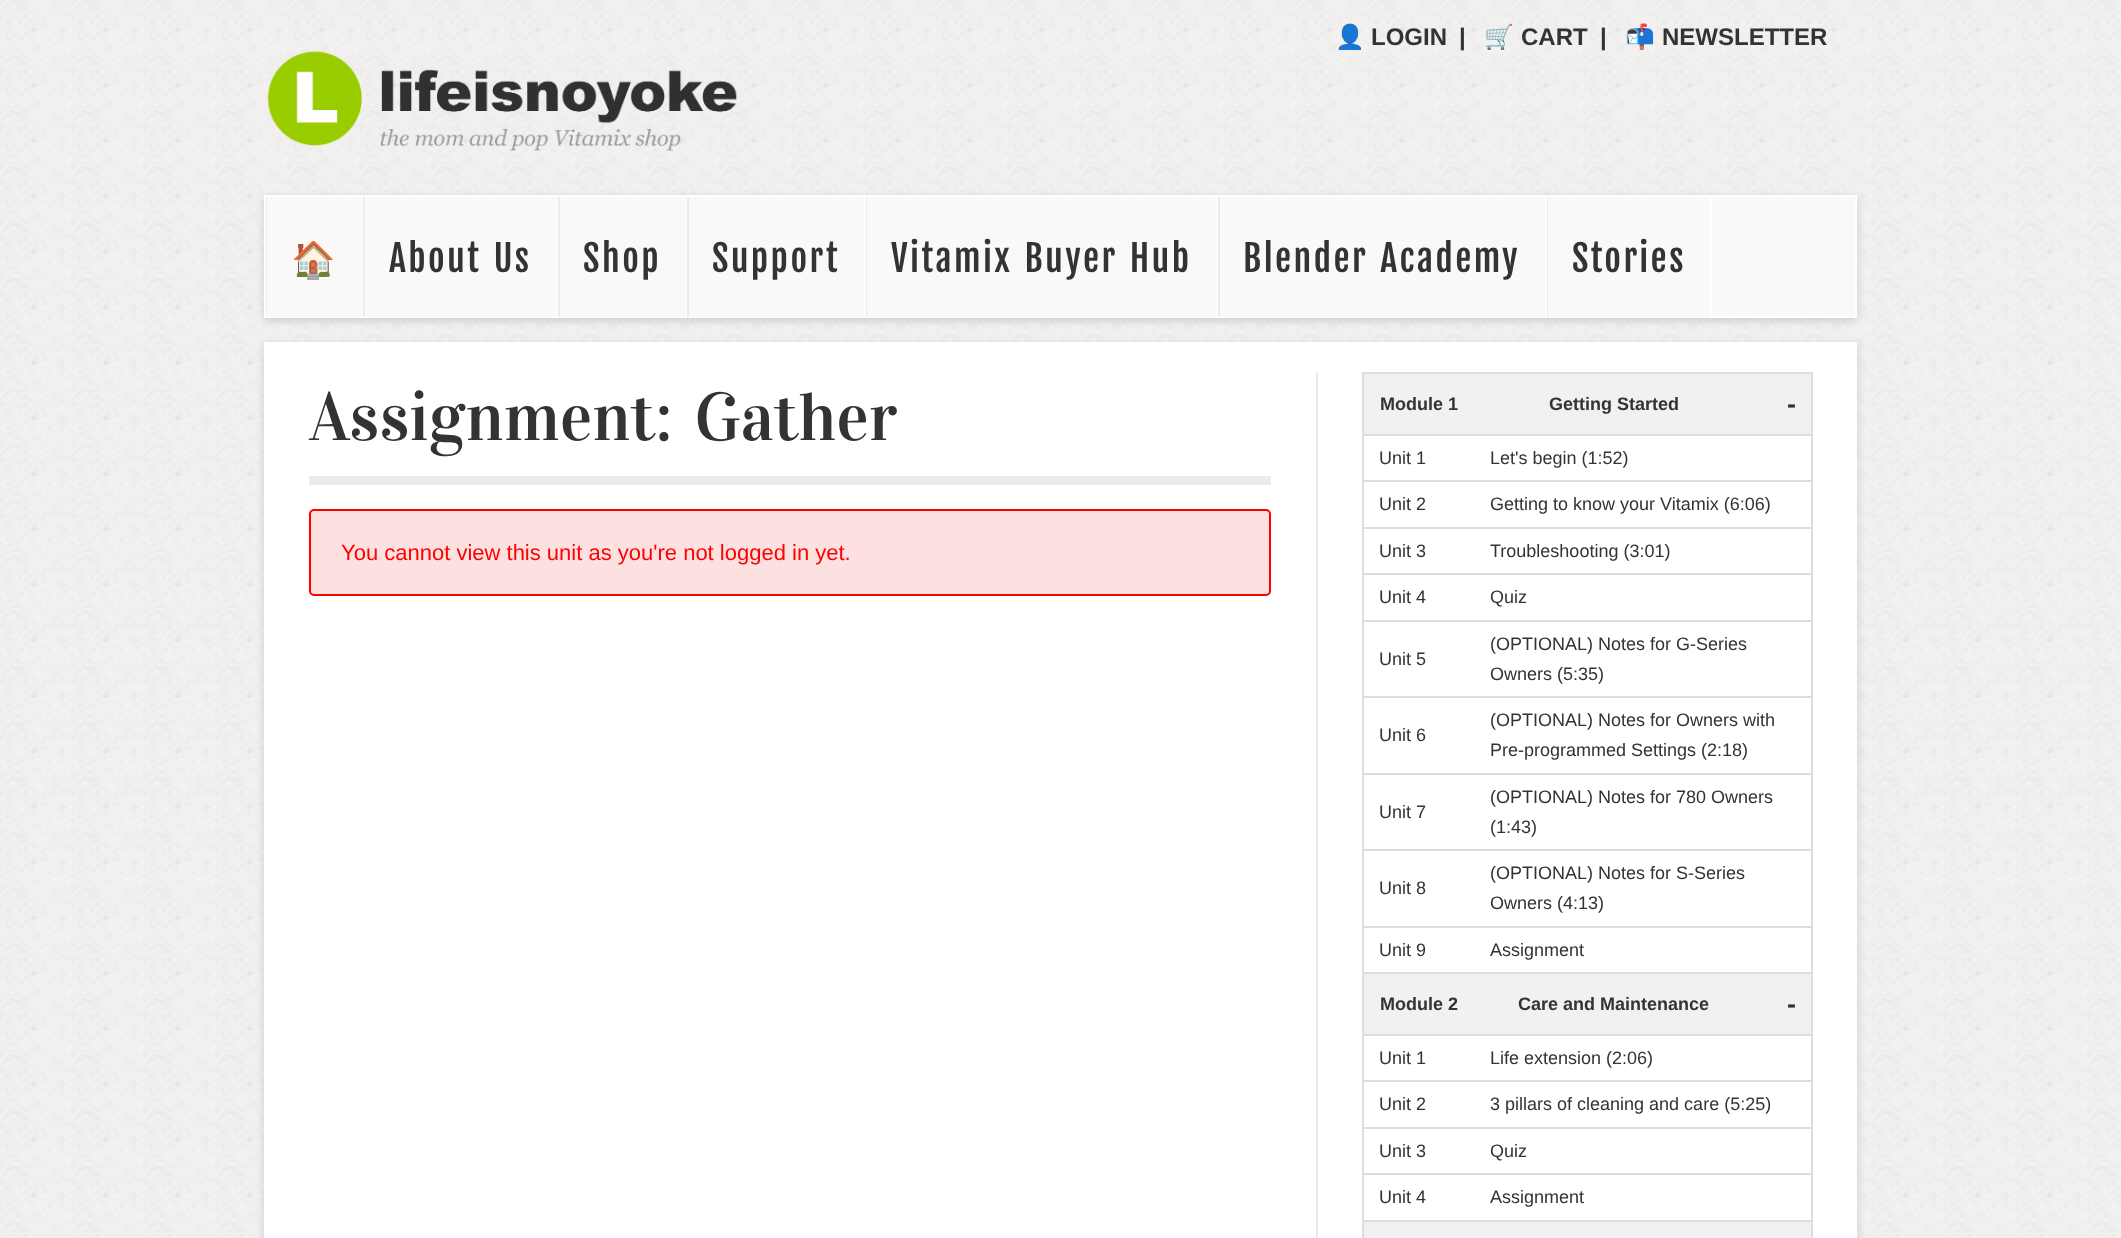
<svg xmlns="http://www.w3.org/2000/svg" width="2121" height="1238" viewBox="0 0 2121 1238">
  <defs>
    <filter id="blur1" x="-50%" y="-200%" width="200%" height="500%"><feGaussianBlur stdDeviation="4"/></filter>
  </defs>
  <rect width="100%" height="100%" fill="#ffffff"/>
  <image x="0" y="0" width="2121" height="1238" href="img1.png"/>
  <text x="1335" y="45" font-family="Noto Color Emoji" font-size="24" font-weight="bold" fill="#333333">👤</text>
  <text x="1371" y="45" font-family="Liberation Sans" font-size="24" font-weight="bold" fill="#333333">LOGIN</text>
  <text x="1459" y="45" font-family="Liberation Sans" font-size="24" font-weight="bold" fill="#333333">|</text>
  <text x="1484" y="45" font-family="Noto Color Emoji" font-size="24" font-weight="bold" fill="#333333">🛒</text>
  <text x="1521" y="45" font-family="Liberation Sans" font-size="24" font-weight="bold" fill="#333333">CART</text>
  <text x="1600" y="45" font-family="Liberation Sans" font-size="24" font-weight="bold" fill="#333333">|</text>
  <text x="1625" y="45" font-family="Noto Color Emoji" font-size="24" font-weight="bold" fill="#333333">📬</text>
  <text x="1662" y="45" font-family="Liberation Sans" font-size="24" font-weight="bold" fill="#333333">NEWSLETTER</text>
  <image x="267" y="51" width="470" height="100" href="img2.png"/>
  <rect x="264" y="198" width="1593" height="123" fill="#000000" fill-opacity="0.15" filter="url(#blur1)"/>
  <rect x="269" y="197" width="1586" height="119" fill="#faf9f7"/>
  <rect x="265" y="196" width="1591" height="121" fill="none" stroke="#ffffff" stroke-width="2"/>
  <rect x="362" y="197" width="1" height="120" fill="#ffffff"/>
  <rect x="266" y="197" width="1" height="120" fill="#ecebea"/>
  <rect x="268" y="198" width="93" height="118" fill="none" stroke="#faf9f7" stroke-width="2"/>
  <text x="291" y="272" font-family="Noto Color Emoji" font-size="36" letter-spacing="2.4" fill="#333333">🏠</text>
  <rect x="557" y="197" width="1" height="120" fill="#ffffff"/>
  <rect x="363" y="197" width="2" height="120" fill="#ecebea"/>
  <rect x="366" y="198" width="190" height="118" fill="none" stroke="#faf9f7" stroke-width="2"/>
  <text x="389" y="272" word-spacing="2" font-family="Fjalla One" font-size="36" letter-spacing="2.4" fill="#333333">About Us</text>
  <rect x="686" y="197" width="1" height="120" fill="#ffffff"/>
  <rect x="558" y="197" width="2" height="120" fill="#ecebea"/>
  <rect x="561" y="198" width="124" height="118" fill="none" stroke="#faf9f7" stroke-width="2"/>
  <text x="583" y="272" font-family="Fjalla One" font-size="36" letter-spacing="2.4" fill="#333333">Shop</text>
  <rect x="864" y="197" width="2" height="120" fill="#ffffff"/>
  <rect x="687" y="197" width="2" height="120" fill="#ecebea"/>
  <rect x="690" y="198" width="173" height="118" fill="none" stroke="#faf9f7" stroke-width="2"/>
  <text x="712" y="272" font-family="Fjalla One" font-size="36" letter-spacing="2.4" fill="#333333">Support</text>
  <rect x="1217" y="197" width="1" height="120" fill="#ffffff"/>
  <rect x="866" y="197" width="1" height="120" fill="#ecebea"/>
  <rect x="868" y="198" width="348" height="118" fill="none" stroke="#faf9f7" stroke-width="2"/>
  <text x="891" y="272" word-spacing="2" font-family="Fjalla One" font-size="36" letter-spacing="2.4" fill="#333333">Vitamix Buyer Hub</text>
  <rect x="1545" y="197" width="2" height="120" fill="#ffffff"/>
  <rect x="1218" y="197" width="2" height="120" fill="#ecebea"/>
  <rect x="1221" y="198" width="323" height="118" fill="none" stroke="#faf9f7" stroke-width="2"/>
  <text x="1243" y="272" word-spacing="2" font-family="Fjalla One" font-size="36" letter-spacing="2.4" fill="#333333">Blender Academy</text>
  <rect x="1710" y="197" width="2" height="120" fill="#ffffff"/>
  <rect x="1547" y="197" width="1" height="120" fill="#ecebea"/>
  <rect x="1549" y="198" width="160" height="118" fill="none" stroke="#faf9f7" stroke-width="2"/>
  <text x="1572" y="272" font-family="Fjalla One" font-size="36" letter-spacing="2.4" fill="#333333">Stories</text>
  <rect x="264" y="345" width="1593" height="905" fill="#000000" fill-opacity="0.15" filter="url(#blur1)"/>
  <rect x="264" y="342" width="1593" height="896" fill="#ffffff"/>
  <rect x="309" y="476" width="962" height="9" fill="#ebebeb"/>
  <text x="309" y="440" word-spacing="7" font-family="Vidaloka" font-size="67.5" fill="#333333">Assignment: Gather</text>
  <rect x="310" y="510" width="960" height="85" rx="4" fill="#fde0e0" stroke="#ff0000" stroke-width="2"/>
  <text x="341" y="560" font-family="Liberation Sans" font-size="22" fill="#ff0000">You cannot view this unit as you're not logged in yet.</text>
  <rect x="1316" y="372" width="2" height="866" fill="#ecebea"/>
  <rect x="1362" y="372" width="450" height="2" fill="#dddddd"/>
  <rect x="1811" y="372" width="2" height="866" fill="#dddddd"/>
  <rect x="1362" y="372" width="2" height="866" fill="#dddddd"/>
  <rect x="1364" y="374" width="447" height="60" fill="#f1f1f1"/>
  <text x="1380" y="410" font-family="Liberation Sans" font-size="18" font-weight="bold" fill="#333333">Module 1</text>
  <text x="1549" y="410" font-family="Liberation Sans" font-size="18" font-weight="bold" fill="#333333">Getting Started</text>
  <rect x="1362" y="434" width="450" height="2" fill="#dddddd"/>
  <text x="1787" y="413" font-family="Liberation Sans" font-size="27" font-weight="bold" fill="#333333">-</text>
  <text x="1379" y="464" font-family="Liberation Sans" font-size="18" fill="#333333">Unit 1</text>
  <rect x="1362" y="480" width="450" height="2" fill="#dddddd"/>
  <text x="1490" y="464" font-family="Liberation Sans" font-size="18" fill="#333333">Let's begin (1:52)</text>
  <text x="1379" y="510" font-family="Liberation Sans" font-size="18" fill="#333333">Unit 2</text>
  <rect x="1362" y="527" width="450" height="2" fill="#dddddd"/>
  <text x="1490" y="510" font-family="Liberation Sans" font-size="18" fill="#333333">Getting to know your Vitamix (6:06)</text>
  <text x="1379" y="557" font-family="Liberation Sans" font-size="18" fill="#333333">Unit 3</text>
  <rect x="1362" y="573" width="450" height="2" fill="#dddddd"/>
  <text x="1490" y="557" font-family="Liberation Sans" font-size="18" fill="#333333">Troubleshooting (3:01)</text>
  <text x="1379" y="603" font-family="Liberation Sans" font-size="18" fill="#333333">Unit 4</text>
  <rect x="1362" y="620" width="450" height="2" fill="#dddddd"/>
  <text x="1490" y="603" font-family="Liberation Sans" font-size="18" fill="#333333">Quiz</text>
  <text x="1379" y="665" font-family="Liberation Sans" font-size="18" fill="#333333">Unit 5</text>
  <rect x="1362" y="696" width="450" height="2" fill="#dddddd"/>
  <text x="1490" y="650" font-family="Liberation Sans" font-size="18" fill="#333333">(OPTIONAL) Notes for G-Series</text>
  <text x="1490" y="680" font-family="Liberation Sans" font-size="18" fill="#333333">Owners (5:35)</text>
  <text x="1379" y="741" font-family="Liberation Sans" font-size="18" fill="#333333">Unit 6</text>
  <rect x="1362" y="773" width="450" height="2" fill="#dddddd"/>
  <text x="1490" y="726" font-family="Liberation Sans" font-size="18" fill="#333333">(OPTIONAL) Notes for Owners with</text>
  <text x="1490" y="756" font-family="Liberation Sans" font-size="18" fill="#333333">Pre-programmed Settings (2:18)</text>
  <text x="1379" y="818" font-family="Liberation Sans" font-size="18" fill="#333333">Unit 7</text>
  <rect x="1362" y="849" width="450" height="2" fill="#dddddd"/>
  <text x="1490" y="803" font-family="Liberation Sans" font-size="18" fill="#333333">(OPTIONAL) Notes for 780 Owners</text>
  <text x="1490" y="833" font-family="Liberation Sans" font-size="18" fill="#333333">(1:43)</text>
  <text x="1379" y="894" font-family="Liberation Sans" font-size="18" fill="#333333">Unit 8</text>
  <rect x="1362" y="926" width="450" height="2" fill="#dddddd"/>
  <text x="1490" y="879" font-family="Liberation Sans" font-size="18" fill="#333333">(OPTIONAL) Notes for S-Series</text>
  <text x="1490" y="909" font-family="Liberation Sans" font-size="18" fill="#333333">Owners (4:13)</text>
  <text x="1379" y="956" font-family="Liberation Sans" font-size="18" fill="#333333">Unit 9</text>
  <rect x="1362" y="972" width="450" height="2" fill="#dddddd"/>
  <text x="1490" y="956" font-family="Liberation Sans" font-size="18" fill="#333333">Assignment</text>
  <rect x="1364" y="974" width="447" height="60" fill="#f1f1f1"/>
  <text x="1380" y="1010" font-family="Liberation Sans" font-size="18" font-weight="bold" fill="#333333">Module 2</text>
  <text x="1518" y="1010" font-family="Liberation Sans" font-size="18" font-weight="bold" fill="#333333">Care and Maintenance</text>
  <rect x="1362" y="1034" width="450" height="2" fill="#dddddd"/>
  <text x="1787" y="1013" font-family="Liberation Sans" font-size="27" font-weight="bold" fill="#333333">-</text>
  <text x="1379" y="1064" font-family="Liberation Sans" font-size="18" fill="#333333">Unit 1</text>
  <rect x="1362" y="1080" width="450" height="2" fill="#dddddd"/>
  <text x="1490" y="1064" font-family="Liberation Sans" font-size="18" fill="#333333">Life extension (2:06)</text>
  <text x="1379" y="1110" font-family="Liberation Sans" font-size="18" fill="#333333">Unit 2</text>
  <rect x="1362" y="1127" width="450" height="2" fill="#dddddd"/>
  <text x="1490" y="1110" font-family="Liberation Sans" font-size="18" fill="#333333">3 pillars of cleaning and care (5:25)</text>
  <text x="1379" y="1157" font-family="Liberation Sans" font-size="18" fill="#333333">Unit 3</text>
  <rect x="1362" y="1173" width="450" height="2" fill="#dddddd"/>
  <text x="1490" y="1157" font-family="Liberation Sans" font-size="18" fill="#333333">Quiz</text>
  <text x="1379" y="1203" font-family="Liberation Sans" font-size="18" fill="#333333">Unit 4</text>
  <rect x="1362" y="1220" width="450" height="2" fill="#dddddd"/>
  <text x="1490" y="1203" font-family="Liberation Sans" font-size="18" fill="#333333">Assignment</text>
  <rect x="1364" y="1222" width="447" height="16" fill="#f1f1f1"/>
</svg>
